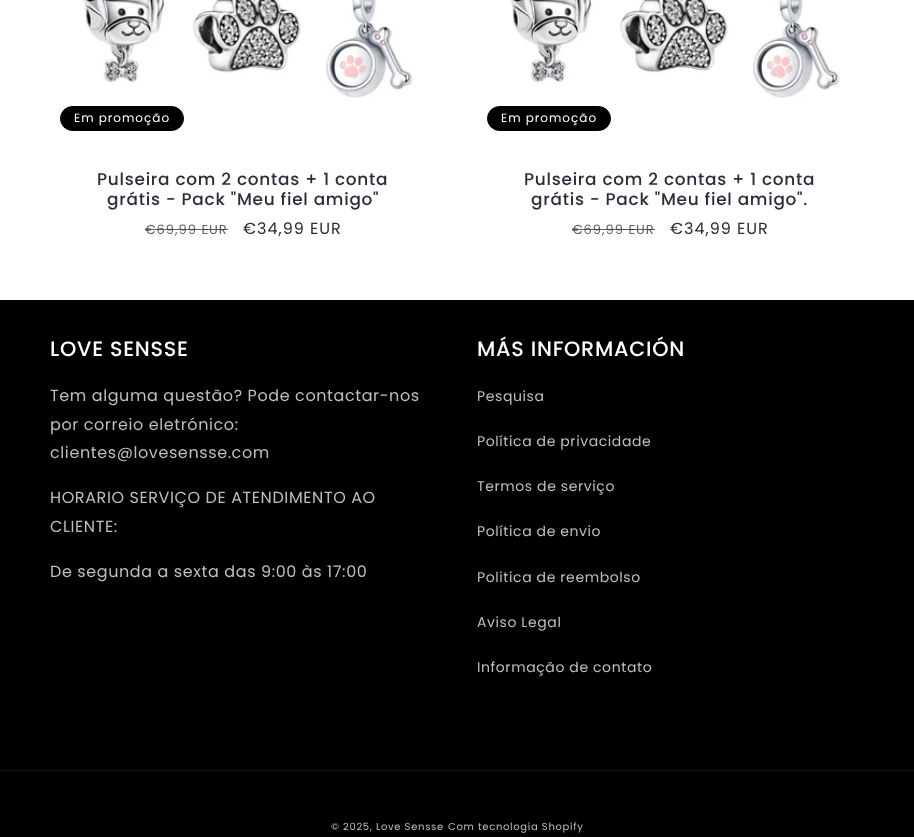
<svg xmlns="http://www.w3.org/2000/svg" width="914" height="837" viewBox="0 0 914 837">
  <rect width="100%" height="100%" fill="#ffffff"/>
  <image x="83" y="0" width="330" height="98" href="img1.png"/>
  <rect x="60.5" y="106.5" width="123" height="24" rx="12" fill="#000000" stroke="#000000"/>
  <text x="74" y="122" font-family="Poppins" font-size="12" letter-spacing="1" fill="#ffffff">Em promoção</text>
  <text x="97" y="185" font-family="Poppins" font-size="16.9" font-weight="500" letter-spacing="0.75" fill="#2e2a39">Pulseira com 2 contas + 1 conta</text>
  <text x="107" y="205" font-family="Poppins" font-size="16.9" font-weight="500" letter-spacing="0.75" fill="#2e2a39">grátis - Pack "Meu fiel amigo"</text>
  <text x="145" y="234" font-family="Poppins" font-size="13" letter-spacing="1" fill="#625f6b">€69,99 EUR</text>
  <rect x="145" y="229" width="83" height="1" fill="#2e2a39" fill-opacity="0.75"/>
  <text x="243" y="234" font-family="Poppins" font-size="16" letter-spacing="1" fill="#2e2a39">€34,99 EUR</text>
  <image x="510" y="0" width="330" height="98" href="img2.png"/>
  <rect x="487.5" y="106.5" width="123" height="24" rx="12" fill="#000000" stroke="#000000"/>
  <text x="501" y="122" font-family="Poppins" font-size="12" letter-spacing="1" fill="#ffffff">Em promoção</text>
  <text x="524" y="185" font-family="Poppins" font-size="16.9" font-weight="500" letter-spacing="0.75" fill="#2e2a39">Pulseira com 2 contas + 1 conta</text>
  <text x="531" y="205" font-family="Poppins" font-size="16.9" font-weight="500" letter-spacing="0.75" fill="#2e2a39">grátis - Pack "Meu fiel amigo".</text>
  <text x="572" y="234" font-family="Poppins" font-size="13" letter-spacing="1" fill="#625f6b">€69,99 EUR</text>
  <rect x="572" y="229" width="83" height="1" fill="#2e2a39" fill-opacity="0.75"/>
  <text x="670" y="234" font-family="Poppins" font-size="16" letter-spacing="1" fill="#2e2a39">€34,99 EUR</text>
  <rect x="0" y="300" width="914" height="537" fill="#000000"/>
  <text x="50" y="356" font-family="Poppins" font-size="20.75" font-weight="500" letter-spacing="0.75" fill="#ffffff">LOVE SENSSE</text>
  <text x="50" y="401" font-family="Poppins" font-size="16" letter-spacing="0.6" fill="#bfbfbf">Tem alguma questão? Pode contactar-nos</text>
  <text x="50" y="430" font-family="Poppins" font-size="16" letter-spacing="0.6" fill="#bfbfbf">por correio eletrónico:</text>
  <text x="50" y="458" font-family="Poppins" font-size="16" letter-spacing="0.6" fill="#bfbfbf">clientes@lovesensse.com</text>
  <text x="50" y="503" font-family="Poppins" font-size="16" letter-spacing="0.6" fill="#bfbfbf">HORARIO SERVIÇO DE ATENDIMENTO AO</text>
  <text x="50" y="532" font-family="Poppins" font-size="16" letter-spacing="0.6" fill="#bfbfbf">CLIENTE:</text>
  <text x="50" y="577" font-family="Poppins" font-size="16" letter-spacing="0.6" fill="#bfbfbf">De segunda a sexta das 9:00 às 17:00</text>
  <text x="477" y="356" font-family="Poppins" font-size="20.75" font-weight="500" letter-spacing="0.75" fill="#ffffff">MÁS INFORMACIÓN</text>
  <text x="477" y="401" font-family="Poppins" font-size="14" letter-spacing="0.6" fill="#bfbfbf">Pesquisa</text>
  <text x="477" y="446" font-family="Poppins" font-size="14" letter-spacing="0.6" fill="#bfbfbf">Política de privacidade</text>
  <text x="477" y="491" font-family="Poppins" font-size="14" letter-spacing="0.6" fill="#bfbfbf">Termos de serviço</text>
  <text x="477" y="536" font-family="Poppins" font-size="14" letter-spacing="0.6" fill="#bfbfbf">Política de envio</text>
  <text x="477" y="582" font-family="Poppins" font-size="14" letter-spacing="0.6" fill="#bfbfbf">Politica de reembolso</text>
  <text x="477" y="627" font-family="Poppins" font-size="14" letter-spacing="0.6" fill="#bfbfbf">Aviso Legal</text>
  <text x="477" y="672" font-family="Poppins" font-size="14" letter-spacing="0.6" fill="#bfbfbf">Informação de contato</text>
  <rect x="0" y="770" width="914" height="1" fill="#141414"/>
  <text x="331" y="830" font-family="Poppins" font-size="10" letter-spacing="0.7" fill="#bfbfbf">© 2025, Love Sensse</text>
  <text x="448" y="830" font-family="Poppins" font-size="10" letter-spacing="0.7" fill="#bfbfbf">Com tecnologia Shopify</text>
</svg>
